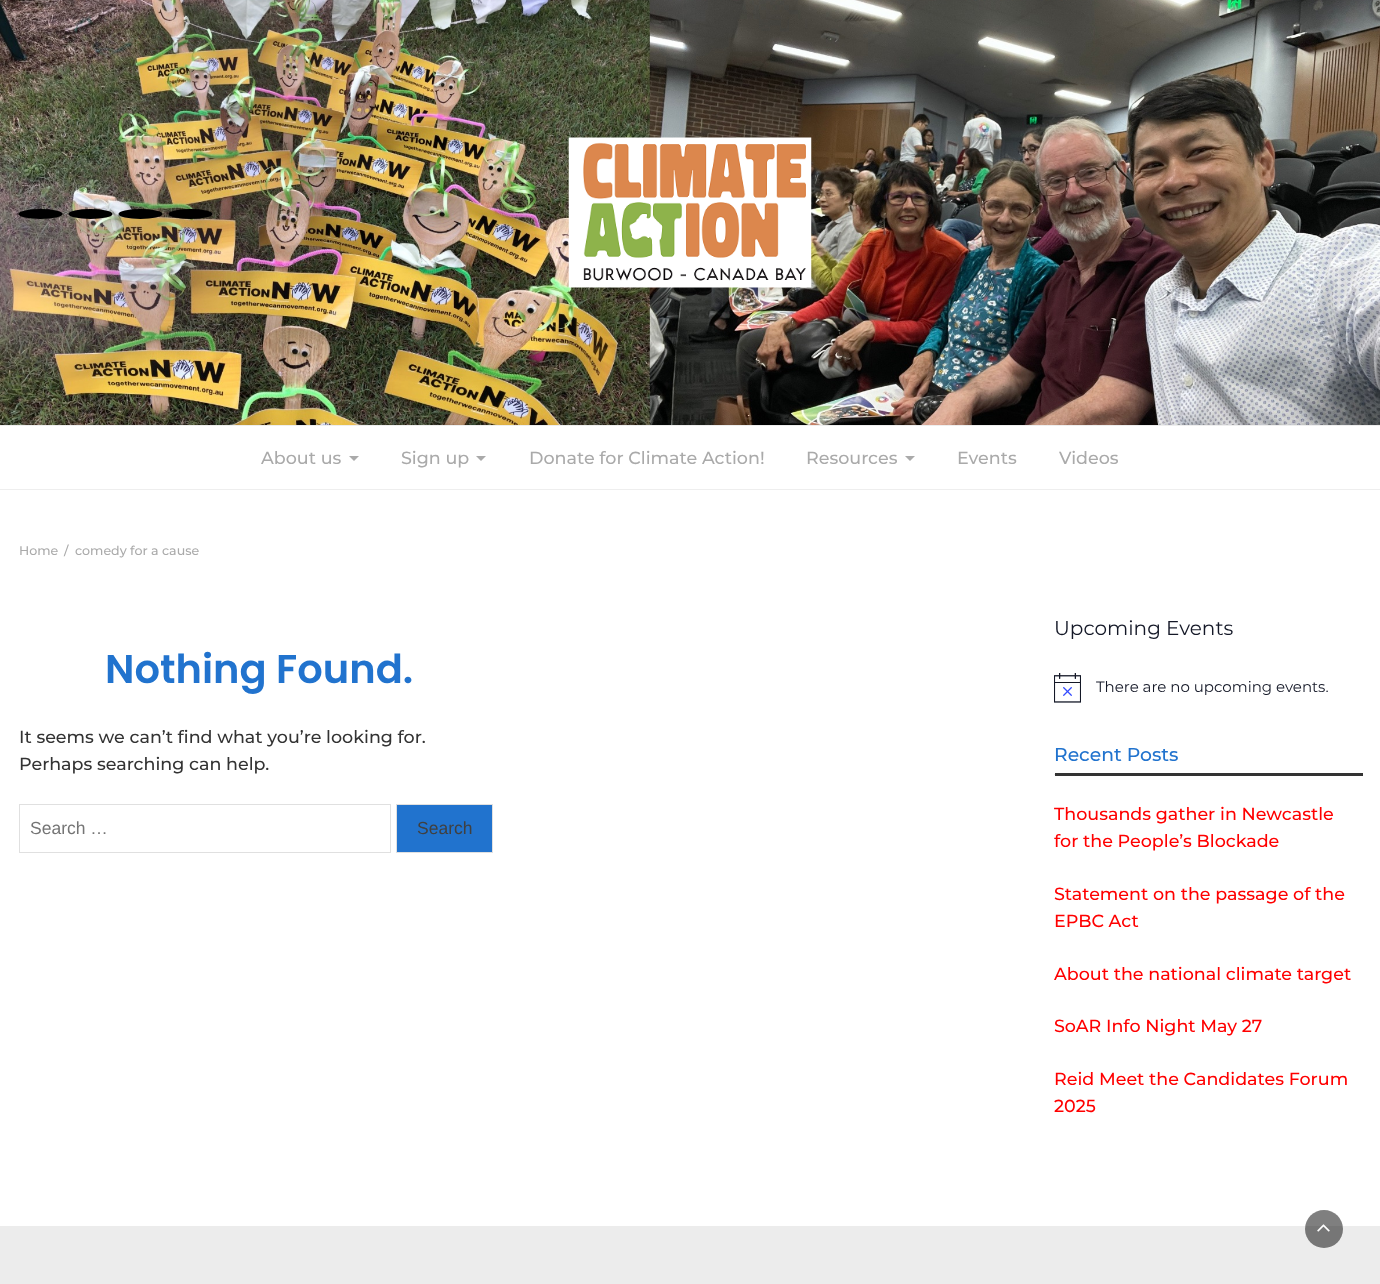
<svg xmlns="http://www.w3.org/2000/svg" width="1380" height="1284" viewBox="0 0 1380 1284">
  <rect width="100%" height="100%" fill="#ffffff"/>
  <image x="0" y="0" width="1380" height="425" href="img1.png"/>
  <ellipse cx="40.5" cy="214" rx="22" ry="5" fill="#000000"/>
  <ellipse cx="90.5" cy="214" rx="22" ry="5" fill="#000000"/>
  <ellipse cx="140.5" cy="214" rx="22" ry="5" fill="#000000"/>
  <ellipse cx="190.5" cy="214" rx="22" ry="5" fill="#000000"/>
  <image x="568" y="137" width="244" height="151" href="img2.png"/>
  <rect x="0" y="425" width="1380" height="1" fill="#eeeeee"/>
  <rect x="0" y="489" width="1380" height="1" fill="#eeeeee"/>
  <text x="261" y="464" font-family="Montserrat" font-size="17.5" font-weight="500" fill="#aaaaaa">About us</text>
  <path d="M349 456H359L354 461Z" fill="#aaaaaa"/>
  <text x="401" y="464" font-family="Montserrat" font-size="17.5" font-weight="500" fill="#aaaaaa">Sign up</text>
  <path d="M476 456H486L481 461Z" fill="#aaaaaa"/>
  <text x="529" y="464" font-family="Montserrat" font-size="17.5" font-weight="500" fill="#aaaaaa">Donate for Climate Action!</text>
  <text x="806" y="464" font-family="Montserrat" font-size="17.5" font-weight="500" fill="#aaaaaa">Resources</text>
  <path d="M905 456H915L910 461Z" fill="#aaaaaa"/>
  <text x="957" y="464" font-family="Montserrat" font-size="17.5" font-weight="500" fill="#aaaaaa">Events</text>
  <text x="1059" y="464" font-family="Montserrat" font-size="17.5" font-weight="500" fill="#aaaaaa">Videos</text>
  <text x="19" y="555" font-family="Montserrat" font-size="12.6" font-weight="500" fill="#aaaaaa">Home</text>
  <text x="64" y="555" font-family="Montserrat" font-size="12.6" font-weight="500" fill="#aaaaaa">/</text>
  <text x="75" y="555" font-family="Montserrat" font-size="12.6" font-weight="500" fill="#aaaaaa">comedy for a cause</text>
  <text x="105" y="683" font-family="Poppins" font-size="40" font-weight="600" fill="#2173ce">Nothing Found.</text>
  <text x="19" y="743" font-family="Montserrat" font-size="17.5" font-weight="500" fill="#333333">It seems we can’t find what you’re looking for.</text>
  <text x="19" y="770" font-family="Montserrat" font-size="17.5" font-weight="500" fill="#333333">Perhaps searching can help.</text>
  <rect x="19.5" y="804.5" width="371" height="48" fill="none" stroke="#e0e0e0"/>
  <text x="30" y="834" font-family="Liberation Sans" font-size="17.5" fill="#757575">Search …</text>
  <rect x="396.5" y="804.5" width="96" height="48" fill="#2173ce" stroke="#e0e0e0"/>
  <text x="417" y="834" font-family="Liberation Sans" font-size="17.5" fill="#404040">Search</text>
  <text x="1054" y="635" font-family="Montserrat" font-size="20" fill="#141827">Upcoming Events</text>
  <image x="1054" y="673" width="27" height="30" href="img3.png"/>
  <text x="1096" y="692" font-family="Montserrat" font-size="15" fill="#141827">There are no upcoming events.</text>
  <rect x="1054" y="774" width="1" height="1" fill="#eeeeee"/>
  <text x="1054" y="761" font-family="Montserrat" font-size="18.75" font-weight="500" fill="#2173ce">Recent Posts</text>
  <rect x="1055" y="773" width="308" height="3" fill="#333333"/>
  <text x="1054" y="820" font-family="Montserrat" font-size="17.5" font-weight="500" fill="#ff0000">Thousands gather in Newcastle</text>
  <text x="1054" y="847" font-family="Montserrat" font-size="17.5" font-weight="500" fill="#ff0000">for the People’s Blockade</text>
  <text x="1054" y="900" font-family="Montserrat" font-size="17.5" font-weight="500" fill="#ff0000">Statement on the passage of the</text>
  <text x="1054" y="927" font-family="Montserrat" font-size="17.5" font-weight="500" fill="#ff0000">EPBC Act</text>
  <text x="1054" y="980" font-family="Montserrat" font-size="17.5" font-weight="500" fill="#ff0000">About the national climate target</text>
  <text x="1054" y="1032" font-family="Montserrat" font-size="17.5" font-weight="500" fill="#ff0000">SoAR Info Night May 27</text>
  <text x="1054" y="1085" font-family="Montserrat" font-size="17.5" font-weight="500" fill="#ff0000">Reid Meet the Candidates Forum</text>
  <text x="1054" y="1112" font-family="Montserrat" font-size="17.5" font-weight="500" fill="#ff0000">2025</text>
  <rect x="0" y="1226" width="1380" height="58" fill="#ececec"/>
  <circle cx="1324" cy="1229" r="19" fill="#000000" fill-opacity="0.5"/>
  <image x="1317" y="1224" width="13" height="8" href="img4.png"/>
</svg>
